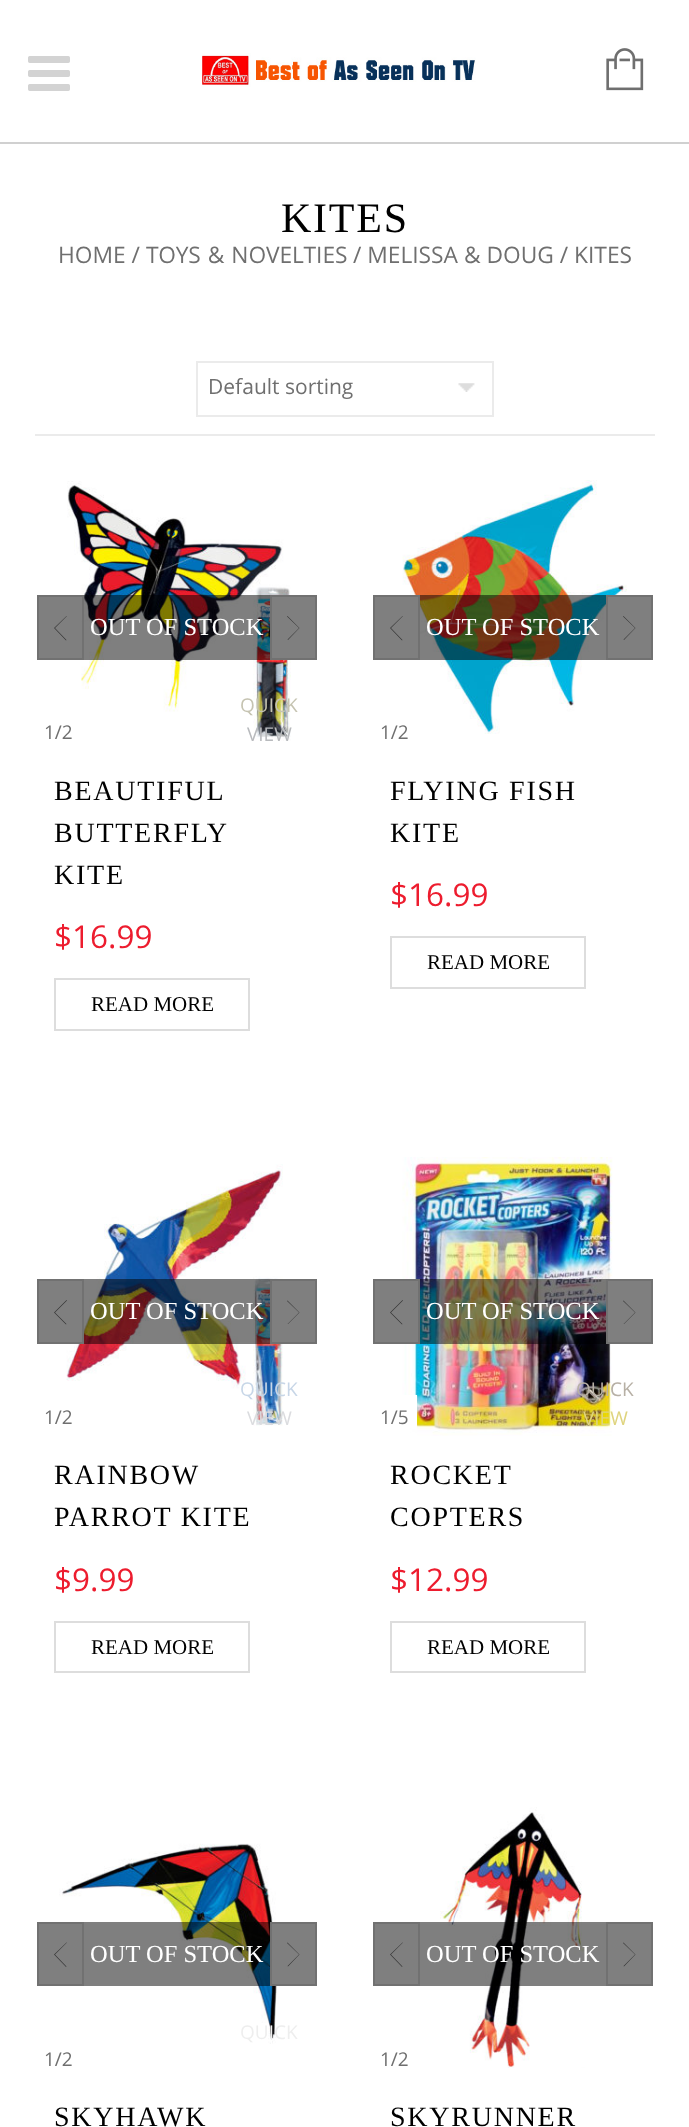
<svg xmlns="http://www.w3.org/2000/svg" width="689" height="2127" viewBox="0 0 689 2127">
  <rect width="100%" height="100%" fill="#ffffff"/>
  <rect x="0" y="142" width="689" height="2" fill="#d0d0d0"/>
  <image x="28" y="56" width="42" height="35" href="img1.png"/>
  <image x="202" y="53" width="274" height="34" href="img2.png"/>
  <image x="606" y="48" width="38" height="43" href="img3.png"/>
  <text x="281" y="232" font-family="Liberation Serif" font-size="42" letter-spacing="1.75" fill="#000000">KITES</text>
  <text x="58" y="263" font-family="Open Sans" font-size="22.75" fill="#6f6f6f">HOME /</text>
  <text x="146" y="263" word-spacing="1" font-family="Open Sans" font-size="22.75" fill="#6f6f6f">TOYS &amp; NOVELTIES</text>
  <text x="353" y="263" font-family="Open Sans" font-size="22.75" fill="#6f6f6f">/ MELISSA &amp; DOUG / KITES</text>
  <rect x="35" y="434" width="620" height="2" fill="#ebebeb"/>
  <image x="458" y="383" width="17" height="9" href="img4.png"/>
  <rect x="197" y="362" width="296" height="54" fill="none" stroke="#ebebeb" stroke-width="2"/>
  <text x="208" y="394" font-family="Open Sans" font-size="21" fill="#6f6f6f">Default sorting</text>
  <image x="67" y="481" width="224" height="260" href="img5.png"/>
  <rect x="81" y="597" width="1" height="2" fill="#ffffff"/>
  <rect x="38" y="596" width="45" height="63" fill="none" stroke="#e2e2e2" stroke-width="2"/>
  <path d="M67 616H66.5L54 628L66 640.5L66.5 640L55 628Z" fill="#6f6f6f"/>
  <rect x="272" y="597" width="19" height="61" fill="#ffffff"/>
  <rect x="271" y="596" width="45" height="63" fill="none" stroke="#e2e2e2" stroke-width="2"/>
  <path d="M299.5 628L287.5 616L287 616.5L299 628L287.5 639.5L288 640Z" fill="#6f6f6f"/>
  <rect x="37" y="595" width="280" height="65" fill="#000000" fill-opacity="0.5"/>
  <text x="90" y="635" font-family="Liberation Serif" font-size="24.5" fill="#ffffff">OUT OF STOCK</text>
  <text x="44" y="739" font-family="Open Sans" font-size="19" fill="#6f6f6f">1/2</text>
  <text x="240" y="712" font-family="Open Sans" font-size="19" fill="#c5c3b1">QUICK</text>
  <text x="247" y="741" font-family="Open Sans" font-size="19" fill="#b8babd">VIEW</text>
  <text x="54" y="800" font-family="Liberation Serif" font-size="28" letter-spacing="1.75" fill="#000000">BEAUTIFUL</text>
  <text x="54" y="842" font-family="Liberation Serif" font-size="28" letter-spacing="1.75" fill="#000000">BUTTERFLY</text>
  <text x="54" y="884" font-family="Liberation Serif" font-size="28" letter-spacing="1.75" fill="#000000">KITE</text>
  <text x="54" y="948" font-family="Open Sans" font-size="31.5" fill="#ed1c2e">$16.99</text>
  <rect x="55" y="979" width="194" height="51" fill="none" stroke="#dddddd" stroke-width="2"/>
  <text x="91" y="1011" font-family="Liberation Serif" font-size="21" fill="#000000">READ MORE</text>
  <image x="402" y="480" width="225" height="254" href="img6.png"/>
  <rect x="402" y="597" width="16" height="42" fill="#ffffff"/>
  <rect x="374" y="596" width="45" height="63" fill="none" stroke="#e2e2e2" stroke-width="2"/>
  <path d="M403 616H402.5L390 628L402 640.5L402.5 640L391 628Z" fill="#6f6f6f"/>
  <rect x="608" y="597" width="11" height="10" fill="#ffffff"/>
  <rect x="607" y="596" width="45" height="63" fill="none" stroke="#e2e2e2" stroke-width="2"/>
  <path d="M635.5 628L623.5 616L623 616.5L635 628L623.5 639.5L624 640Z" fill="#6f6f6f"/>
  <rect x="373" y="595" width="280" height="65" fill="#000000" fill-opacity="0.5"/>
  <text x="426" y="635" font-family="Liberation Serif" font-size="24.5" fill="#ffffff">OUT OF STOCK</text>
  <text x="380" y="739" font-family="Open Sans" font-size="19" fill="#6f6f6f">1/2</text>
  <text x="390" y="800" font-family="Liberation Serif" font-size="28" letter-spacing="1.75" fill="#000000">FLYING FISH</text>
  <text x="390" y="842" font-family="Liberation Serif" font-size="28" letter-spacing="1.75" fill="#000000">KITE</text>
  <text x="390" y="906" font-family="Open Sans" font-size="31.5" fill="#ed1c2e">$16.99</text>
  <rect x="391" y="937" width="194" height="51" fill="none" stroke="#dddddd" stroke-width="2"/>
  <text x="427" y="969" font-family="Liberation Serif" font-size="21" fill="#000000">READ MORE</text>
  <image x="66" y="1164" width="217" height="262" href="img7.png"/>
  <rect x="74" y="1313" width="8" height="29" fill="#ffffff"/>
  <rect x="38" y="1280" width="45" height="63" fill="none" stroke="#e2e2e2" stroke-width="2"/>
  <path d="M67 1300.5L66.5 1300L54 1312.5L66 1324.5L66.5 1324L55 1312.5Z" fill="#6f6f6f"/>
  <rect x="272" y="1281" width="11" height="61" fill="#ffffff"/>
  <rect x="271" y="1280" width="45" height="63" fill="none" stroke="#e2e2e2" stroke-width="2"/>
  <path d="M299.5 1312.5L287.5 1300.5L287 1301L299 1312.5L287.5 1324H288Z" fill="#6f6f6f"/>
  <rect x="37" y="1279" width="280" height="65" fill="#000000" fill-opacity="0.5"/>
  <text x="90" y="1319" font-family="Liberation Serif" font-size="24.5" fill="#ffffff">OUT OF STOCK</text>
  <text x="44" y="1424" font-family="Open Sans" font-size="19" fill="#6f6f6f">1/2</text>
  <text x="240" y="1396" font-family="Open Sans" font-size="19" fill="#c7d6e7">QUICK</text>
  <text x="247" y="1425" font-family="Open Sans" font-size="19" fill="#dbdcdf">VIEW</text>
  <text x="54" y="1484" font-family="Liberation Serif" font-size="28" letter-spacing="1.75" fill="#000000">RAINBOW</text>
  <text x="54" y="1526" font-family="Liberation Serif" font-size="28" letter-spacing="1.75" fill="#000000">PARROT KITE</text>
  <text x="54" y="1591" font-family="Open Sans" font-size="31.5" fill="#ed1c2e">$9.99</text>
  <rect x="55" y="1622" width="194" height="50" fill="none" stroke="#dddddd" stroke-width="2"/>
  <text x="91" y="1654" font-family="Liberation Serif" font-size="21" fill="#000000">READ MORE</text>
  <image x="402" y="1157" width="211" height="279" href="img8.png"/>
  <rect x="404" y="1281" width="14" height="61" fill="#ffffff"/>
  <rect x="374" y="1280" width="45" height="63" fill="none" stroke="#e2e2e2" stroke-width="2"/>
  <path d="M403 1300.5L402.5 1300L390 1312.5L402 1324.5L402.5 1324L391 1312.5Z" fill="#6f6f6f"/>
  <rect x="608" y="1281" width="5" height="61" fill="#ffffff"/>
  <rect x="607" y="1280" width="45" height="63" fill="none" stroke="#e2e2e2" stroke-width="2"/>
  <path d="M635.5 1312.5L623.5 1300.5L623 1301L635 1312.5L623.5 1324H624Z" fill="#6f6f6f"/>
  <rect x="373" y="1279" width="280" height="65" fill="#000000" fill-opacity="0.5"/>
  <text x="426" y="1319" font-family="Liberation Serif" font-size="24.5" fill="#ffffff">OUT OF STOCK</text>
  <rect x="402" y="1395" width="15" height="33" fill="#ffffff"/>
  <text x="380" y="1424" font-family="Open Sans" font-size="19" fill="#6f6f6f">1/5</text>
  <text x="576" y="1396" font-family="Open Sans" font-size="19" fill="#b7b0a5">QUICK</text>
  <text x="583" y="1425" font-family="Open Sans" font-size="19" fill="#dfd47e">VIEW</text>
  <text x="390" y="1484" font-family="Liberation Serif" font-size="28" letter-spacing="1.75" fill="#000000">ROCKET</text>
  <text x="390" y="1526" font-family="Liberation Serif" font-size="28" letter-spacing="1.75" fill="#000000">COPTERS</text>
  <text x="390" y="1591" font-family="Open Sans" font-size="31.5" fill="#ed1c2e">$12.99</text>
  <rect x="391" y="1622" width="194" height="50" fill="none" stroke="#dddddd" stroke-width="2"/>
  <text x="427" y="1654" font-family="Liberation Serif" font-size="21" fill="#000000">READ MORE</text>
  <image x="59" y="1843" width="221" height="201" href="img9.png"/>
  <rect x="38" y="1923" width="45" height="62" fill="none" stroke="#e2e2e2" stroke-width="2"/>
  <path d="M67 1942.5H66.5L54 1954.5L66 1967L66.5 1966.5L55 1954.5Z" fill="#6f6f6f"/>
  <rect x="272" y="1924" width="8" height="60" fill="#ffffff"/>
  <rect x="271" y="1923" width="45" height="62" fill="none" stroke="#e2e2e2" stroke-width="2"/>
  <path d="M299.5 1954.5L287.5 1942.5L287 1943L299 1954.5L287.5 1966L288 1966.5Z" fill="#6f6f6f"/>
  <rect x="37" y="1922" width="280" height="64" fill="#000000" fill-opacity="0.5"/>
  <text x="90" y="1962" font-family="Liberation Serif" font-size="24.5" fill="#ffffff">OUT OF STOCK</text>
  <text x="240" y="2039" font-family="Open Sans" font-size="19" fill="#eeeeee">QUICK</text>
  <text x="44" y="2066" font-family="Open Sans" font-size="19" fill="#6f6f6f">1/2</text>
  <text x="54" y="2126" font-family="Liberation Serif" font-size="28" letter-spacing="1.75" fill="#000000">SKYHAWK</text>
  <rect x="374" y="1923" width="45" height="62" fill="none" stroke="#e2e2e2" stroke-width="2"/>
  <path d="M403 1942.5H402.5L390 1954.5L402 1967L402.5 1966.5L391 1954.5Z" fill="#6f6f6f"/>
  <image x="440" y="1807" width="145" height="261" href="img10.png"/>
  <rect x="607" y="1923" width="45" height="62" fill="none" stroke="#e2e2e2" stroke-width="2"/>
  <path d="M635.5 1954.5L623.5 1942.5L623 1943L635 1954.5L623.5 1966L624 1966.5Z" fill="#6f6f6f"/>
  <rect x="373" y="1922" width="280" height="64" fill="#000000" fill-opacity="0.5"/>
  <text x="426" y="1962" font-family="Liberation Serif" font-size="24.5" fill="#ffffff">OUT OF STOCK</text>
  <text x="380" y="2066" font-family="Open Sans" font-size="19" fill="#6f6f6f">1/2</text>
  <text x="390" y="2126" font-family="Liberation Serif" font-size="28" letter-spacing="1.75" fill="#000000">SKYRUNNER</text>
</svg>
